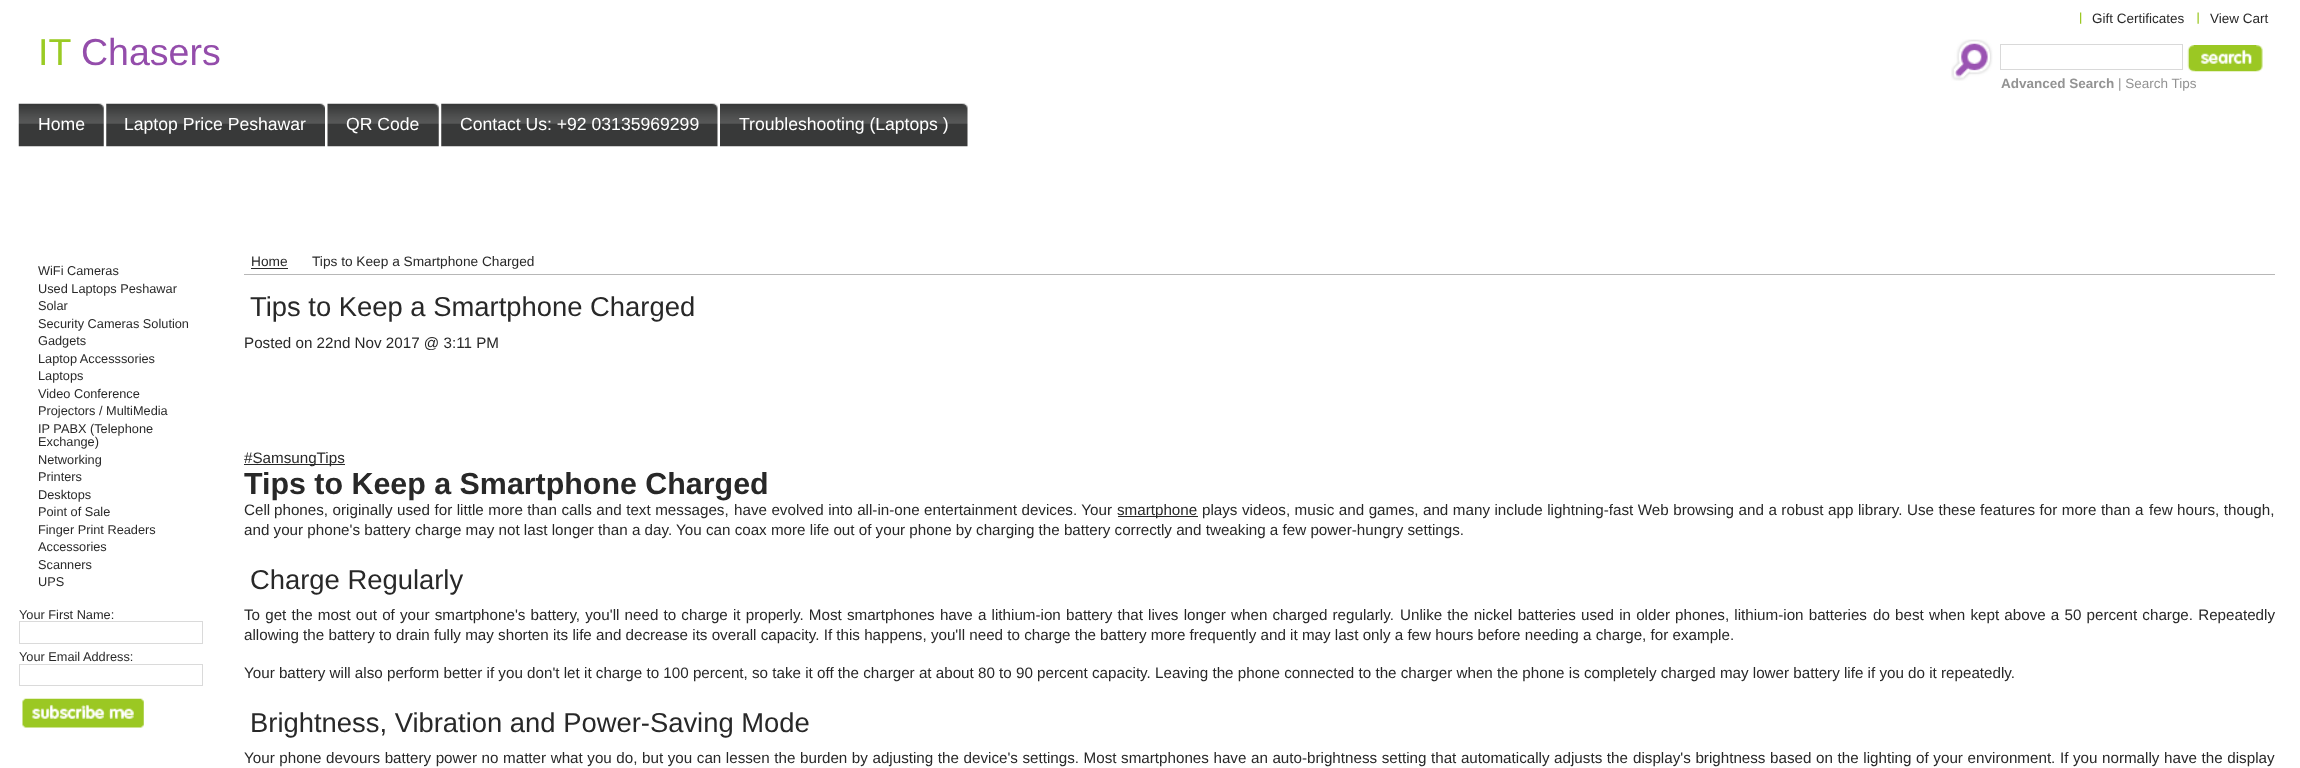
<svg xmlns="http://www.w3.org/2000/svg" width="2300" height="768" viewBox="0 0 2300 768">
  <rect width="100%" height="100%" fill="#ffffff"/>
  <image x="2080" y="12" width="2" height="12" href="img1.png"/>
  <text x="2092" y="23" font-family="Liberation Sans" font-size="13.5" fill="#282828">Gift Certificates</text>
  <image x="2197" y="12" width="2" height="12" href="img2.png"/>
  <text x="2210" y="23" font-family="Liberation Sans" font-size="13.5" fill="#282828">View Cart</text>
  <text x="38" y="65" font-family="Liberation Sans" font-size="37.5" fill="#9acb24">IT</text>
  <text x="81" y="65" font-family="Liberation Sans" font-size="37.5" fill="#944dab">Chasers</text>
  <image x="1951" y="39" width="42" height="42" href="img3.png"/>
  <rect x="2000.5" y="44.5" width="182" height="25" fill="none" stroke="#d9d9d9"/>
  <image x="2187" y="45" width="76" height="27" href="img4.png"/>
  <text x="2001" y="88" font-family="Liberation Sans" font-size="13.5" font-weight="bold" fill="#939393">Advanced Search</text>
  <text x="2118" y="88" font-family="Liberation Sans" font-size="13.5" fill="#939393">| Search Tips</text>
  <image x="18" y="103" width="86" height="44" href="img5.png"/>
  <text x="38" y="130" font-family="Liberation Sans" font-size="17.6" fill="#ffffff">Home</text>
  <image x="106" y="103" width="219" height="44" href="img6.png"/>
  <text x="124" y="130" font-family="Liberation Sans" font-size="17.6" fill="#ffffff">Laptop Price Peshawar</text>
  <image x="327" y="103" width="112" height="44" href="img7.png"/>
  <text x="346" y="130" font-family="Liberation Sans" font-size="17.6" fill="#ffffff">QR Code</text>
  <image x="441" y="103" width="277" height="44" href="img8.png"/>
  <text x="460" y="130" font-family="Liberation Sans" font-size="17.6" fill="#ffffff">Contact Us: +92 03135969299</text>
  <image x="720" y="103" width="248" height="44" href="img9.png"/>
  <text x="739" y="130" font-family="Liberation Sans" font-size="17.6" fill="#ffffff">Troubleshooting (Laptops )</text>
  <text x="38" y="275" font-family="Liberation Sans" font-size="12.75" fill="#282828">WiFi Cameras</text>
  <text x="38" y="293" font-family="Liberation Sans" font-size="12.75" fill="#282828">Used Laptops Peshawar</text>
  <text x="38" y="310" font-family="Liberation Sans" font-size="12.75" fill="#282828">Solar</text>
  <text x="38" y="328" font-family="Liberation Sans" font-size="12.75" fill="#282828">Security Cameras Solution</text>
  <text x="38" y="345" font-family="Liberation Sans" font-size="12.75" fill="#282828">Gadgets</text>
  <text x="38" y="363" font-family="Liberation Sans" font-size="12.75" fill="#282828">Laptop Accesssories</text>
  <text x="38" y="380" font-family="Liberation Sans" font-size="12.75" fill="#282828">Laptops</text>
  <text x="38" y="398" font-family="Liberation Sans" font-size="12.75" fill="#282828">Video Conference</text>
  <text x="38" y="415" font-family="Liberation Sans" font-size="12.75" fill="#282828">Projectors / MultiMedia</text>
  <text x="38" y="433" font-family="Liberation Sans" font-size="12.75" fill="#282828">IP PABX (Telephone</text>
  <text x="38" y="446" font-family="Liberation Sans" font-size="12.75" fill="#282828">Exchange)</text>
  <text x="38" y="464" font-family="Liberation Sans" font-size="12.75" fill="#282828">Networking</text>
  <text x="38" y="481" font-family="Liberation Sans" font-size="12.75" fill="#282828">Printers</text>
  <text x="38" y="499" font-family="Liberation Sans" font-size="12.75" fill="#282828">Desktops</text>
  <text x="38" y="516" font-family="Liberation Sans" font-size="12.75" fill="#282828">Point of Sale</text>
  <text x="38" y="534" font-family="Liberation Sans" font-size="12.75" fill="#282828">Finger Print Readers</text>
  <text x="38" y="551" font-family="Liberation Sans" font-size="12.75" fill="#282828">Accessories</text>
  <text x="38" y="569" font-family="Liberation Sans" font-size="12.75" fill="#282828">Scanners</text>
  <text x="38" y="586" font-family="Liberation Sans" font-size="12.75" fill="#282828">UPS</text>
  <text x="19" y="619" font-family="Liberation Sans" font-size="12.75" fill="#282828">Your First Name:</text>
  <rect x="19.5" y="621.5" width="183" height="22" fill="none" stroke="#dadada"/>
  <text x="19" y="661" font-family="Liberation Sans" font-size="12.75" fill="#282828">Your Email Address:</text>
  <rect x="19.5" y="664.5" width="183" height="21" fill="none" stroke="#dadada"/>
  <image x="22" y="698" width="122" height="30" href="img10.png"/>
  <rect x="244" y="274" width="2031" height="1" fill="#b7b7b7"/>
  <text x="251" y="266" font-family="Liberation Sans" font-size="13.7" fill="#282828">Home</text>
  <rect x="251" y="268" width="37" height="1" fill="#282828"/>
  <text x="312" y="266" font-family="Liberation Sans" font-size="13.7" fill="#282828">Tips to Keep a Smartphone Charged</text>
  <text x="250" y="316" font-family="Liberation Sans" font-size="27.4" fill="#282828">Tips to Keep a Smartphone Charged</text>
  <text x="244" y="348" font-family="Liberation Sans" font-size="15.2" fill="#282828">Posted on 22nd Nov 2017 @ 3:11 PM</text>
  <rect x="244" y="464" width="101" height="1" fill="#282828"/>
  <text x="244" y="463" font-family="Liberation Sans" font-size="15.2" fill="#282828">#SamsungTips</text>
  <text x="244" y="494" font-family="Liberation Sans" font-size="30.4" font-weight="bold" fill="#282828">Tips to Keep a Smartphone Charged</text>
  <text x="244" y="515" font-family="Liberation Sans" font-size="15.2" fill="#282828">Cell</text>
  <text x="274" y="515" word-spacing="0.3" font-family="Liberation Sans" font-size="15.2" fill="#282828">phones, originally used for little more than calls and text messages,</text>
  <text x="734" y="515" word-spacing="0.25" font-family="Liberation Sans" font-size="15.2" fill="#282828">have evolved into all-in-one entertainment devices. Your</text>
  <rect x="1118" y="516" width="80" height="1" fill="#282828"/>
  <text x="1117" y="515" font-family="Liberation Sans" font-size="15.2" fill="#282828">smartphone</text>
  <text x="1202" y="515" word-spacing="0.3" font-family="Liberation Sans" font-size="15.2" fill="#282828">plays videos, music and games, and many include lightning-fast Web browsing and a robust app library. Use these features for more than a</text>
  <text x="2149" y="515" word-spacing="0.25" font-family="Liberation Sans" font-size="15.2" fill="#282828">few hours, though,</text>
  <text x="244" y="535" font-family="Liberation Sans" font-size="15.2" fill="#282828">and your phone's battery charge may not last longer than a day. You can coax more life out of your phone by charging the battery correctly and tweaking a few power-hungry settings.</text>
  <text x="250" y="589" font-family="Liberation Sans" font-size="27.4" fill="#282828">Charge Regularly</text>
  <text x="244" y="620" word-spacing="0.95" font-family="Liberation Sans" font-size="15.2" fill="#282828">To get the most out of your smartphone's battery, you'll need to charge it properly. Most smartphones have a lithium-ion battery that lives longer when charged regularly.</text>
  <text x="1400" y="620" word-spacing="0.95" font-family="Liberation Sans" font-size="15.2" fill="#282828">Unlike the nickel batteries used in older phones, lithium-ion batteries</text>
  <text x="1873" y="620" word-spacing="0.95" font-family="Liberation Sans" font-size="15.2" fill="#282828">do best when kept above a 50 percent charge. Repeatedly</text>
  <text x="244" y="640" font-family="Liberation Sans" font-size="15.2" fill="#282828">allowing the battery to drain fully may shorten its life and decrease its overall capacity. If this happens, you'll need to charge the battery more frequently and it may last only a few hours before needing a charge, for example.</text>
  <text x="244" y="678" font-family="Liberation Sans" font-size="15.2" fill="#282828">Your battery will also perform better if you don't let it charge to 100 percent, so take it off the charger at about 80 to 90 percent capacity. Leaving the phone connected to the charger when the phone is completely charged may lower battery life if you do it repeatedly.</text>
  <text x="250" y="732" font-family="Liberation Sans" font-size="27.4" fill="#282828">Brightness, Vibration and Power-Saving Mode</text>
  <text x="244" y="763" word-spacing="0.35" font-family="Liberation Sans" font-size="15.2" fill="#282828">Your phone devours battery power no matter what you do, but you can lessen the burden by adjusting the device's settings. Most smartphones have an auto-brightness setting that automatically adjusts the</text>
  <text x="1633" y="763" word-spacing="0.4" font-family="Liberation Sans" font-size="15.2" fill="#282828">display's brightness based on the lighting of your environment. If you</text>
  <text x="2102" y="763" word-spacing="0.4" font-family="Liberation Sans" font-size="15.2" fill="#282828">normally have the display</text>
</svg>
